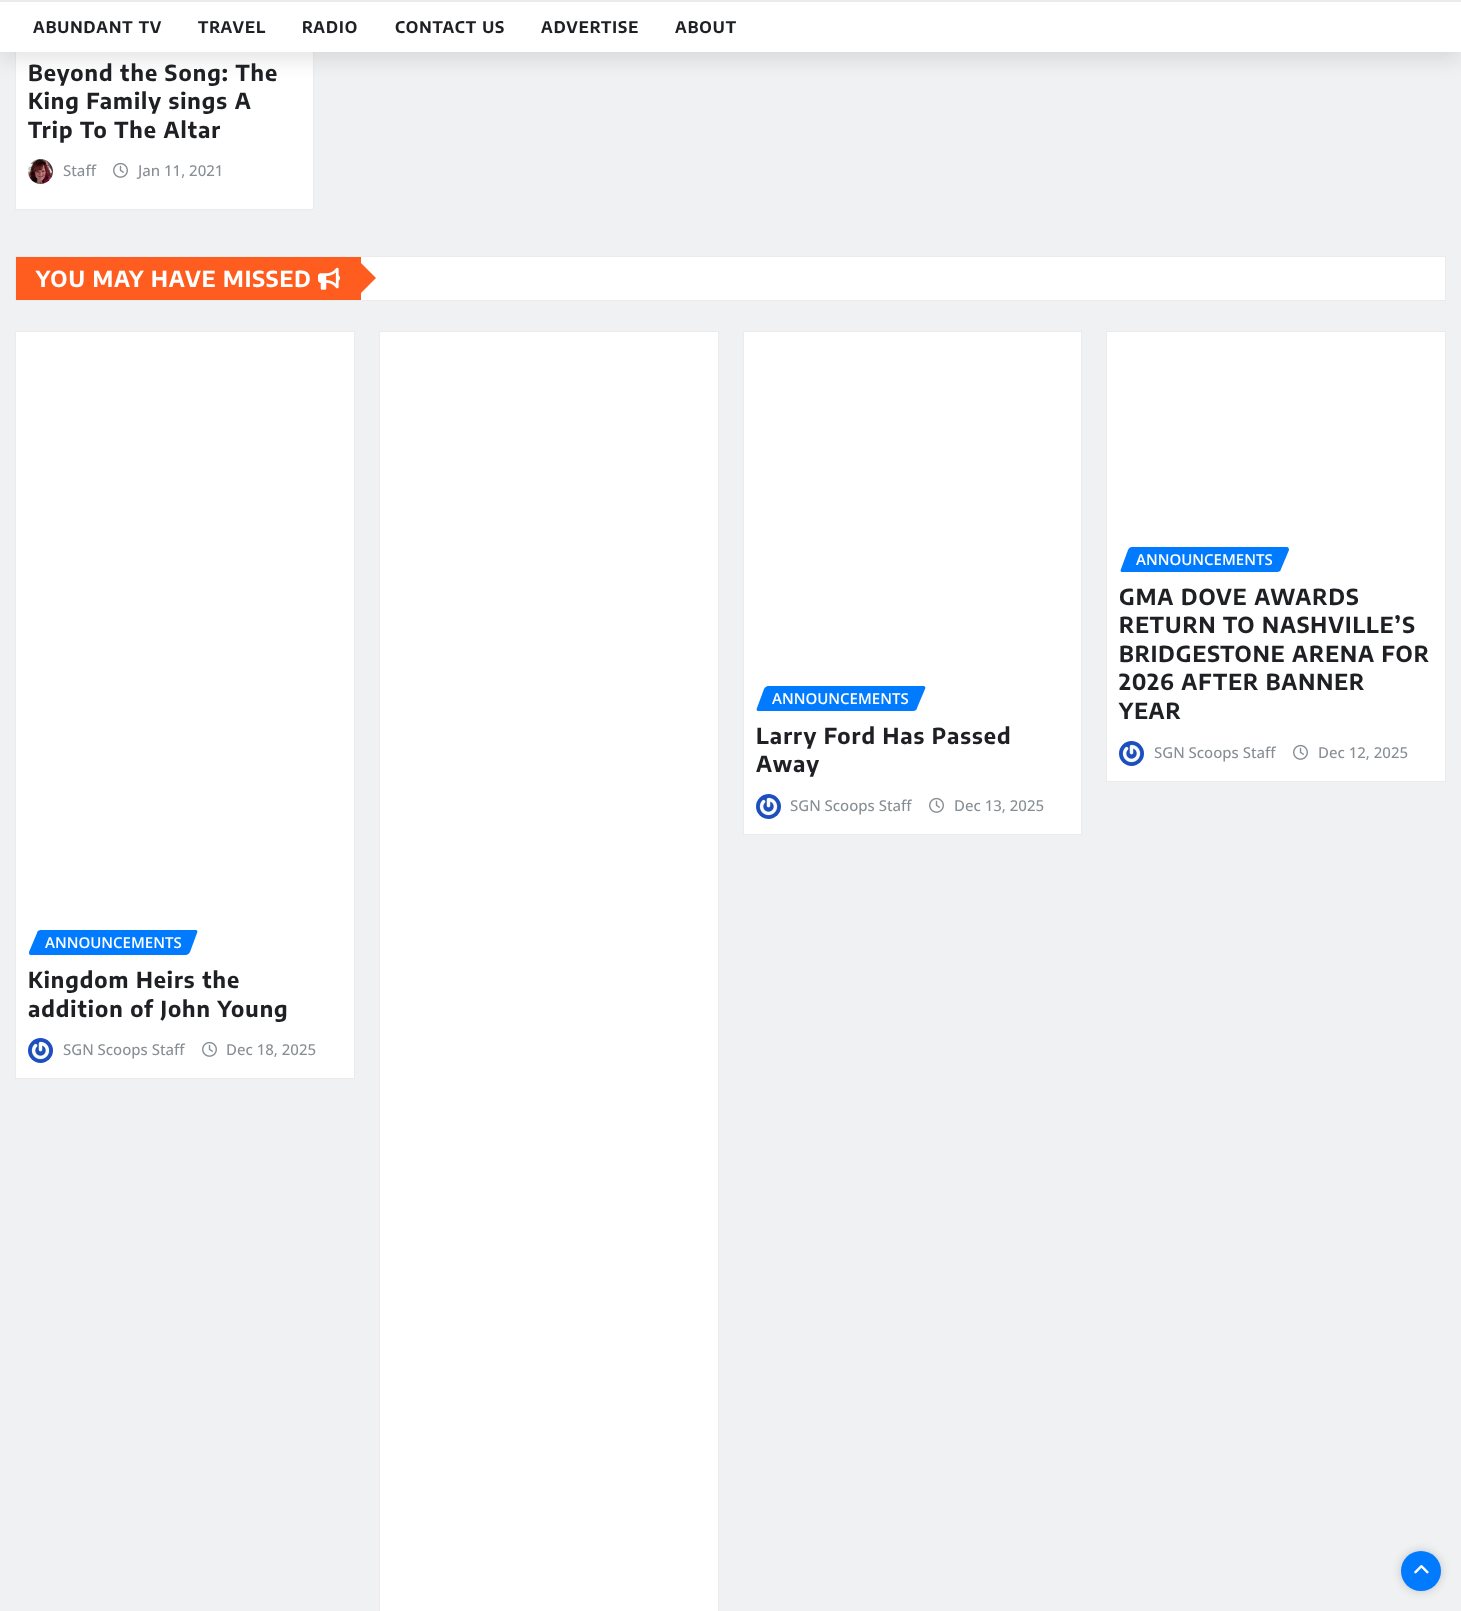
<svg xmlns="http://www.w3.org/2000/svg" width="1461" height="1611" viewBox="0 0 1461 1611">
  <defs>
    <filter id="blur1" x="-50%" y="-200%" width="200%" height="500%"><feGaussianBlur stdDeviation="10"/></filter>
    <filter id="blur2" x="-50%" y="-200%" width="200%" height="500%"><feGaussianBlur stdDeviation="5"/></filter>
  </defs>
  <rect width="100%" height="100%" fill="#f0f1f3"/>
  <rect x="16" y="52" width="297" height="157" fill="#ffffff"/>
  <rect x="15.5" y="-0.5" width="298" height="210" fill="none" stroke="#ebebeb"/>
  <rect x="0" y="8" width="1461" height="52" fill="#000000" fill-opacity="0.1" filter="url(#blur1)"/>
  <rect x="0" y="2" width="1461" height="50" fill="#ffffff"/>
  <rect x="0" y="0" width="1461" height="2" fill="#ebebeb"/>
  <text x="33" y="33" font-family="Encode Sans Condensed" font-size="16" font-weight="bold" letter-spacing="1" fill="#1f2024">ABUNDANT TV</text>
  <text x="198" y="33" font-family="Encode Sans Condensed" font-size="16" font-weight="bold" letter-spacing="1" fill="#1f2024">TRAVEL</text>
  <text x="302" y="33" font-family="Encode Sans Condensed" font-size="16" font-weight="bold" letter-spacing="1" fill="#1f2024">RADIO</text>
  <text x="395" y="33" font-family="Encode Sans Condensed" font-size="16" font-weight="bold" letter-spacing="1" fill="#1f2024">CONTACT US</text>
  <text x="541" y="33" font-family="Encode Sans Condensed" font-size="16" font-weight="bold" letter-spacing="1" fill="#1f2024">ADVERTISE</text>
  <text x="675" y="33" font-family="Encode Sans Condensed" font-size="16" font-weight="bold" letter-spacing="1" fill="#1f2024">ABOUT</text>
  <text x="28" y="81" font-family="Encode Sans Condensed" font-size="22" font-weight="bold" letter-spacing="1" fill="#1f2024">Beyond the Song: The</text>
  <text x="28" y="109" font-family="Encode Sans Condensed" font-size="22" font-weight="bold" letter-spacing="1" fill="#1f2024">King Family sings A</text>
  <text x="28" y="138" font-family="Encode Sans Condensed" font-size="22" font-weight="bold" letter-spacing="1" fill="#1f2024">Trip To The Altar</text>
  <image x="28" y="159" width="25" height="25" href="img1.png"/>
  <text x="63" y="176" font-family="Open Sans" font-size="15" font-weight="500" fill="#878e94">Staff</text>
  <image x="113" y="162" width="15" height="16" href="img2.png"/>
  <text x="138" y="176" font-family="Open Sans" font-size="15" font-weight="500" fill="#878e94">Jan 11, 2021</text>
  <rect x="361" y="257" width="1084" height="43" fill="#ffffff"/>
  <rect x="15.5" y="256.5" width="1430" height="44" fill="none" stroke="#ebebeb"/>
  <rect x="16" y="257" width="345" height="43" fill="#ff5d20"/>
  <text x="36" y="287" font-family="Encode Sans Condensed" font-size="22" font-weight="bold" letter-spacing="1" fill="#ffffff">YOU MAY HAVE MISSED</text>
  <image x="318" y="267" width="22" height="23" href="img3.png"/>
  <path d="M361 293V263L376 278Z" fill="#ff5d20"/>
  <rect x="379.5" y="331.5" width="339" height="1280" fill="#ffffff" stroke="#ebebeb"/>
  <rect x="743.5" y="331.5" width="338" height="503" fill="#ffffff" stroke="#ebebeb"/>
  <path d="M768 686H923C925 686 926 687 925 689L917 708C917 710 915 711 913 711H759C757 711 756 710 757 708L764 689C765 687 767 686 768 686Z" fill="#007bff"/>
  <text x="772" y="704" font-family="Open Sans" font-size="15" font-weight="600" fill="#ffffff">ANNOUNCEMENTS</text>
  <text x="756" y="744" font-family="Encode Sans Condensed" font-size="22" font-weight="bold" letter-spacing="1" fill="#1f2024">Larry Ford Has Passed</text>
  <text x="756" y="772" font-family="Encode Sans Condensed" font-size="22" font-weight="bold" letter-spacing="1" fill="#1f2024">Away</text>
  <image x="756" y="794" width="25" height="25" href="img4.png"/>
  <text x="790" y="811" font-family="Open Sans" font-size="15" font-weight="500" fill="#878e94">SGN Scoops Staff</text>
  <image x="929" y="797" width="15" height="16" href="img2.png"/>
  <text x="954" y="811" font-family="Open Sans" font-size="15" font-weight="500" fill="#878e94">Dec 13, 2025</text>
  <rect x="1106.5" y="331.5" width="339" height="450" fill="#ffffff" stroke="#ebebeb"/>
  <path d="M1132 547H1287C1288 547 1289 548 1289 550L1281 569C1281 571 1279 572 1277 572H1122C1121 572 1120 571 1121 569L1128 550C1129 548 1130 547 1132 547Z" fill="#007bff"/>
  <text x="1136" y="565" font-family="Open Sans" font-size="15" font-weight="600" fill="#ffffff">ANNOUNCEMENTS</text>
  <text x="1119" y="605" font-family="Encode Sans Condensed" font-size="22" font-weight="bold" letter-spacing="1" fill="#1f2024">GMA DOVE AWARDS</text>
  <text x="1119" y="633" font-family="Encode Sans Condensed" font-size="22" font-weight="bold" letter-spacing="1" fill="#1f2024">RETURN TO NASHVILLE’S</text>
  <text x="1119" y="662" font-family="Encode Sans Condensed" font-size="22" font-weight="bold" letter-spacing="1" fill="#1f2024">BRIDGESTONE ARENA FOR</text>
  <text x="1119" y="690" font-family="Encode Sans Condensed" font-size="22" font-weight="bold" letter-spacing="1" fill="#1f2024">2026 AFTER BANNER</text>
  <text x="1119" y="719" font-family="Encode Sans Condensed" font-size="22" font-weight="bold" letter-spacing="1" fill="#1f2024">YEAR</text>
  <image x="1119" y="741" width="25" height="25" href="img5.png"/>
  <text x="1154" y="758" font-family="Open Sans" font-size="15" font-weight="500" fill="#878e94">SGN Scoops Staff</text>
  <image x="1293" y="744" width="15" height="16" href="img2.png"/>
  <text x="1318" y="758" font-family="Open Sans" font-size="15" font-weight="500" fill="#878e94">Dec 12, 2025</text>
  <rect x="15.5" y="331.5" width="339" height="747" fill="#ffffff" stroke="#ebebeb"/>
  <path d="M41 930H196C197 930 198 931 197 933L190 952C189 954 187 955 186 955H31C29 955 29 954 29 952L37 933C37 931 39 930 41 930Z" fill="#007bff"/>
  <text x="45" y="948" font-family="Open Sans" font-size="15" font-weight="600" fill="#ffffff">ANNOUNCEMENTS</text>
  <text x="28" y="988" font-family="Encode Sans Condensed" font-size="22" font-weight="bold" letter-spacing="1" fill="#1f2024">Kingdom Heirs the</text>
  <text x="28" y="1017" font-family="Encode Sans Condensed" font-size="22" font-weight="bold" letter-spacing="1" fill="#1f2024">addition of John Young</text>
  <image x="28" y="1038" width="25" height="25" href="img5.png"/>
  <text x="63" y="1055" font-family="Open Sans" font-size="15" font-weight="500" fill="#878e94">SGN Scoops Staff</text>
  <image x="202" y="1041" width="15" height="16" href="img2.png"/>
  <text x="226" y="1055" font-family="Open Sans" font-size="15" font-weight="500" fill="#878e94">Dec 18, 2025</text>
  <rect x="1401" y="1551" width="40" height="40" rx="20" fill="#000000" fill-opacity="0.2" filter="url(#blur2)"/>
  <circle cx="1421" cy="1571" r="20" fill="#007bff"/>
  <image x="1414" y="1565" width="15" height="9" href="img6.png"/>
</svg>
